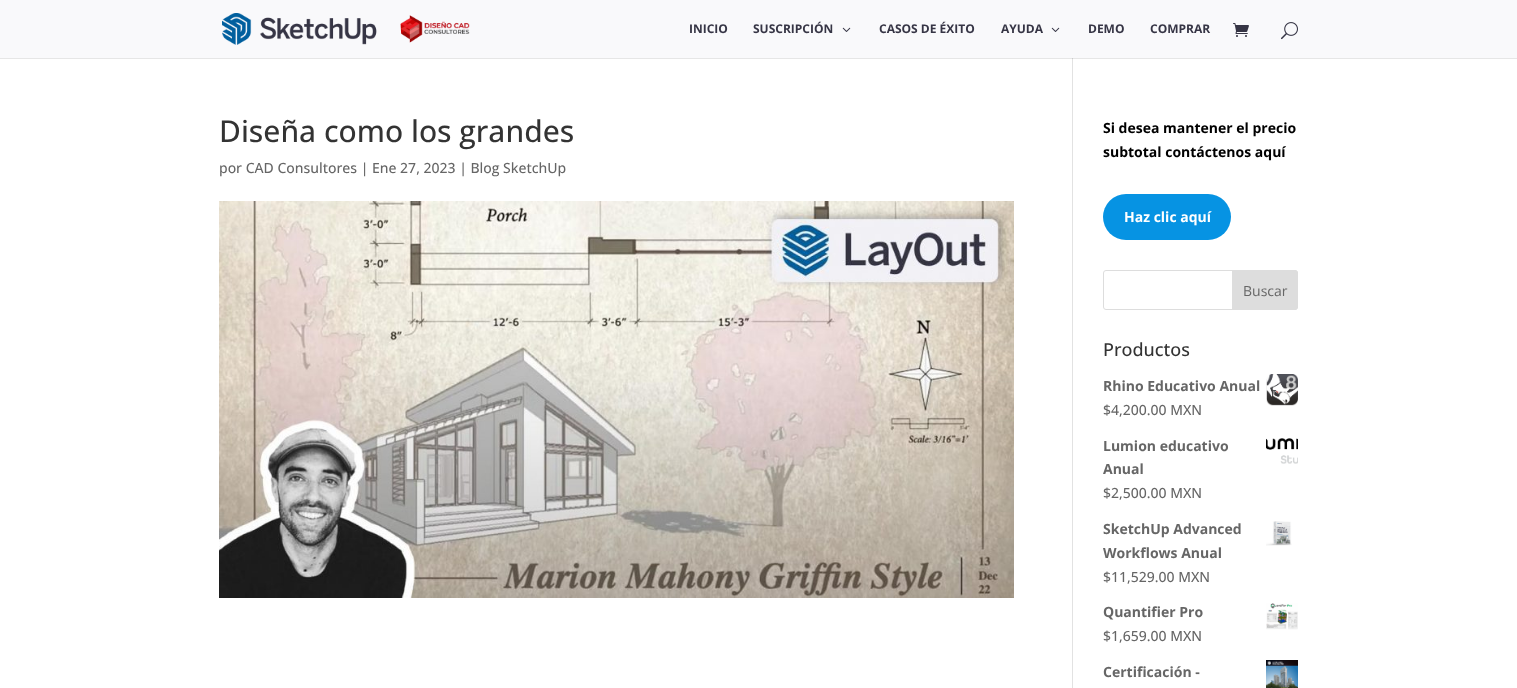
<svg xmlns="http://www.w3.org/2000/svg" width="1517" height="688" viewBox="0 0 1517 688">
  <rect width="100%" height="100%" fill="#ffffff"/>
  <rect x="0" y="0" width="1517" height="58" fill="#f9f9fb"/>
  <image x="222" y="13" width="248" height="32" href="img1.png"/>
  <text x="689" y="33" font-family="Open Sans" font-size="12" font-weight="bold" fill="#363545">INICIO</text>
  <text x="753" y="33" font-family="Open Sans" font-size="12" font-weight="bold" fill="#363545">SUSCRIPCIÓN</text>
  <image x="842" y="27" width="9" height="5" href="img2.png"/>
  <text x="879" y="33" font-family="Open Sans" font-size="12" font-weight="bold" fill="#363545">CASOS DE ÉXITO</text>
  <text x="1001" y="33" font-family="Open Sans" font-size="12" font-weight="bold" fill="#363545">AYUDA</text>
  <image x="1051" y="27" width="9" height="5" href="img2.png"/>
  <text x="1088" y="33" font-family="Open Sans" font-size="12" font-weight="bold" fill="#363545">DEMO</text>
  <text x="1150" y="33" font-family="Open Sans" font-size="12" font-weight="bold" fill="#363545">COMPRAR</text>
  <image x="1233" y="23" width="16" height="14" href="img3.png"/>
  <image x="1281" y="22" width="17" height="18" href="img4.png"/>
  <rect x="0" y="58" width="1517" height="1" fill="#e6e6e6"/>
  <rect x="1072" y="58" width="1" height="630" fill="#e2e2e2"/>
  <rect x="1072" y="58" width="1" height="1" fill="#cbcbcb"/>
  <text x="219" y="142" font-family="Open Sans" font-size="30" font-weight="500" fill="#333333">Diseña como los grandes</text>
  <text x="219" y="173" font-family="Open Sans" font-size="14" font-weight="500" fill="#666666">por CAD Consultores | Ene 27, 2023 | Blog SketchUp</text>
  <image x="219" y="201" width="795" height="397" href="img5.png"/>
  <text x="1103" y="133" font-family="Open Sans" font-size="14" font-weight="bold" fill="#000000">Si desea mantener el precio</text>
  <text x="1103" y="157" font-family="Open Sans" font-size="14" font-weight="bold" fill="#000000">subtotal contáctenos aquí</text>
  <rect x="1103" y="194" width="128" height="46" rx="23" fill="#0693e3"/>
  <text x="1124" y="222" font-family="Open Sans" font-size="14" font-weight="bold" fill="#ffffff">Haz clic aquí</text>
  <rect x="1103.5" y="270.5" width="194" height="39" rx="2.5" fill="none" stroke="#dddddd"/>
  <path d="M1232.5 270.5H1295C1296.5 270.5 1297.5 271.5 1297.5 273V307C1297.5 308.5 1296.5 309.5 1295 309.5H1232.5Z" fill="#dddddd" stroke="#dddddd"/>
  <text x="1243" y="296" font-family="Open Sans" font-size="14" fill="#666666">Buscar</text>
  <text x="1103" y="356" font-family="Open Sans" font-size="18" font-weight="500" fill="#333333">Productos</text>
  <text x="1103" y="391" font-family="Open Sans" font-size="14" font-weight="bold" fill="#666666">Rhino Educativo Anual</text>
  <image x="1266" y="374" width="32" height="32" href="img6.png"/>
  <text x="1103" y="415" font-family="Open Sans" font-size="14" font-weight="500" fill="#666666">$4,200.00 MXN</text>
  <text x="1103" y="451" font-family="Open Sans" font-size="14" font-weight="bold" fill="#666666">Lumion educativo</text>
  <image x="1266" y="438" width="32" height="26" href="img7.png"/>
  <text x="1103" y="474" font-family="Open Sans" font-size="14" font-weight="bold" fill="#666666">Anual</text>
  <text x="1103" y="498" font-family="Open Sans" font-size="14" font-weight="500" fill="#666666">$2,500.00 MXN</text>
  <text x="1103" y="534" font-family="Open Sans" font-size="14" font-weight="bold" fill="#666666">SketchUp Advanced</text>
  <image x="1266" y="521" width="26" height="25" href="img8.png"/>
  <text x="1103" y="558" font-family="Open Sans" font-size="14" font-weight="bold" fill="#666666">Workflows Anual</text>
  <text x="1103" y="582" font-family="Open Sans" font-size="14" font-weight="500" fill="#666666">$11,529.00 MXN</text>
  <text x="1103" y="617" font-family="Open Sans" font-size="14" font-weight="bold" fill="#666666">Quantifier Pro</text>
  <image x="1266" y="603" width="32" height="27" href="img9.png"/>
  <text x="1103" y="641" font-family="Open Sans" font-size="14" font-weight="500" fill="#666666">$1,659.00 MXN</text>
  <text x="1103" y="677" font-family="Open Sans" font-size="14" font-weight="bold" fill="#666666">Certificación -</text>
  <image x="1266" y="660" width="32" height="28" href="img10.png"/>
</svg>
